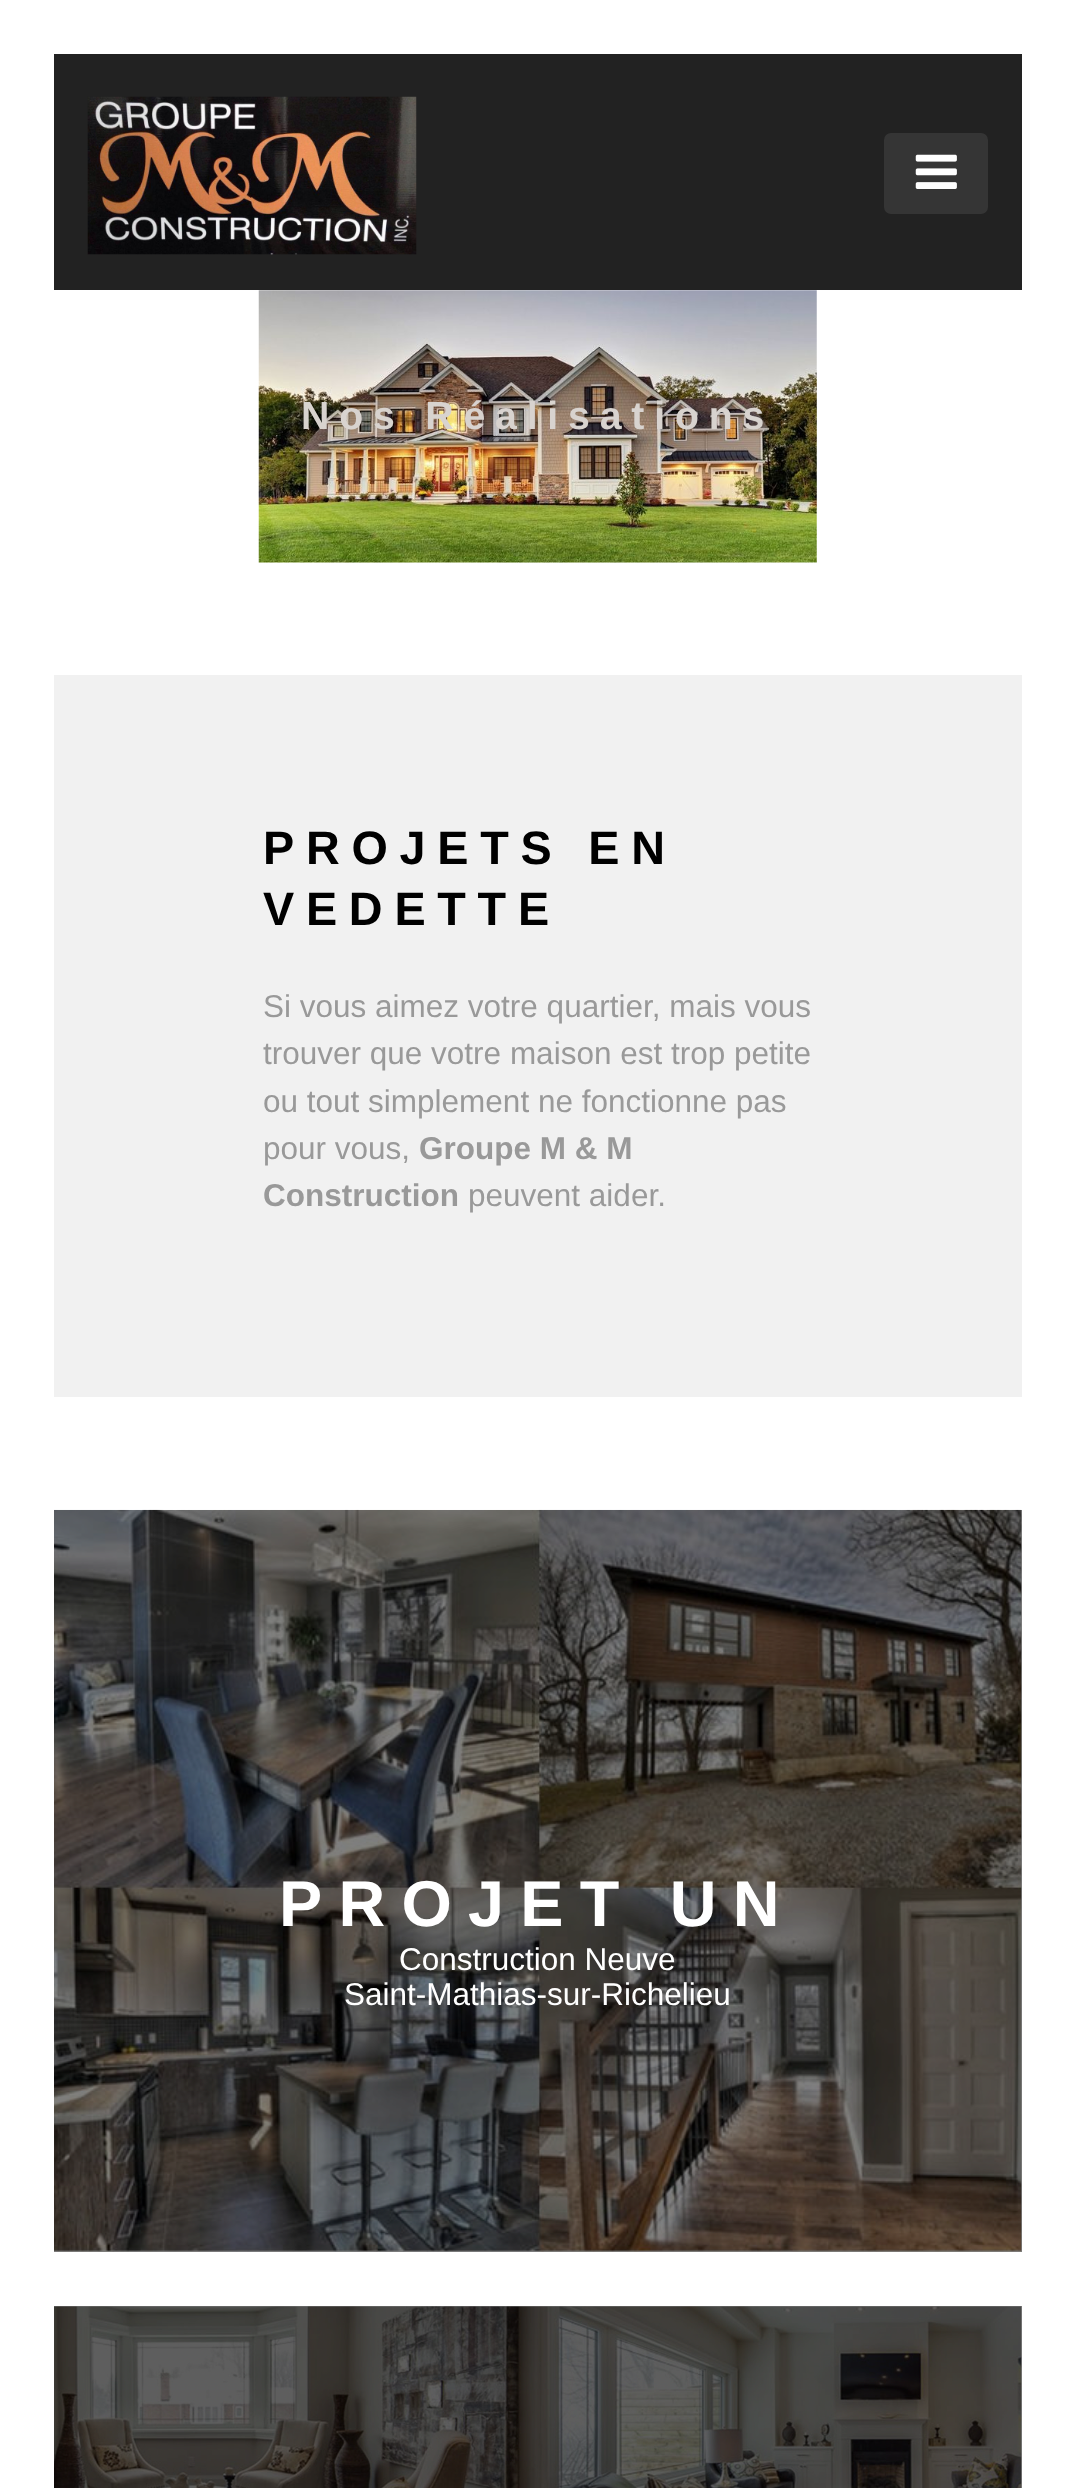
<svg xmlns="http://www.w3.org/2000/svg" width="1074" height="2488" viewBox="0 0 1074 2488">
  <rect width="100%" height="100%" fill="#ffffff"/>
  <rect x="54" y="2306" width="968" height="182" fill="#808080"/>
  <rect x="1021" y="1510" width="1" height="742" fill="#808080"/>
  <rect x="54" y="54" width="968" height="236" fill="#222222"/>
  <image x="87" y="96" width="330" height="159" href="img1.png"/>
  <rect x="884" y="133" width="104" height="81" rx="7" fill="#353535"/>
  <image x="915" y="154" width="42" height="35" href="img2.png"/>
  <image x="258" y="290" width="559" height="273" href="img3.png"/>
  <text x="301" y="429" font-family="Liberation Sans" font-size="39.25" font-weight="bold" letter-spacing="9.8" fill="#d8d3cf">Nos Réalisations</text>
  <rect x="54" y="675" width="968" height="722" fill="#f1f1f1"/>
  <text x="263" y="864" font-family="Liberation Sans" font-size="46.75" font-weight="bold" letter-spacing="11.75" fill="#000000">PROJETS EN</text>
  <text x="263" y="925" font-family="Liberation Sans" font-size="46.75" font-weight="bold" letter-spacing="11.75" fill="#000000">VEDETTE</text>
  <text x="263" y="1017" font-family="Liberation Sans" font-size="31.5" fill="#999999">Si vous aimez votre quartier, mais vous</text>
  <text x="263" y="1064" font-family="Liberation Sans" font-size="31.5" fill="#999999">trouver que votre maison est trop petite</text>
  <text x="263" y="1112" font-family="Liberation Sans" font-size="31.5" fill="#999999">ou tout simplement ne fonctionne pas</text>
  <text x="263" y="1159" font-family="Liberation Sans" font-size="31.5" fill="#999999">pour vous,</text>
  <text x="419" y="1159" font-family="Liberation Sans" font-size="31.5" font-weight="bold" fill="#999999">Groupe M &amp; M</text>
  <text x="263" y="1206" font-family="Liberation Sans" font-size="31.5" font-weight="bold" fill="#999999">Construction</text>
  <text x="468" y="1206" font-family="Liberation Sans" font-size="31.5" fill="#999999">peuvent aider.</text>
  <image x="54" y="1509" width="968" height="743" href="img4.png"/>
  <text x="279" y="1926" font-family="Liberation Sans" font-size="64.75" font-weight="bold" letter-spacing="16.25" fill="#ffffff">PROJET UN</text>
  <text x="399" y="1970" font-family="Liberation Sans" font-size="31.5" fill="#ffffff">Construction Neuve</text>
  <text x="344" y="2005" font-family="Liberation Sans" font-size="31.5" fill="#ffffff">Saint-Mathias-sur-Richelieu</text>
  <image x="54" y="2306" width="968" height="182" href="img5.png"/>
</svg>
